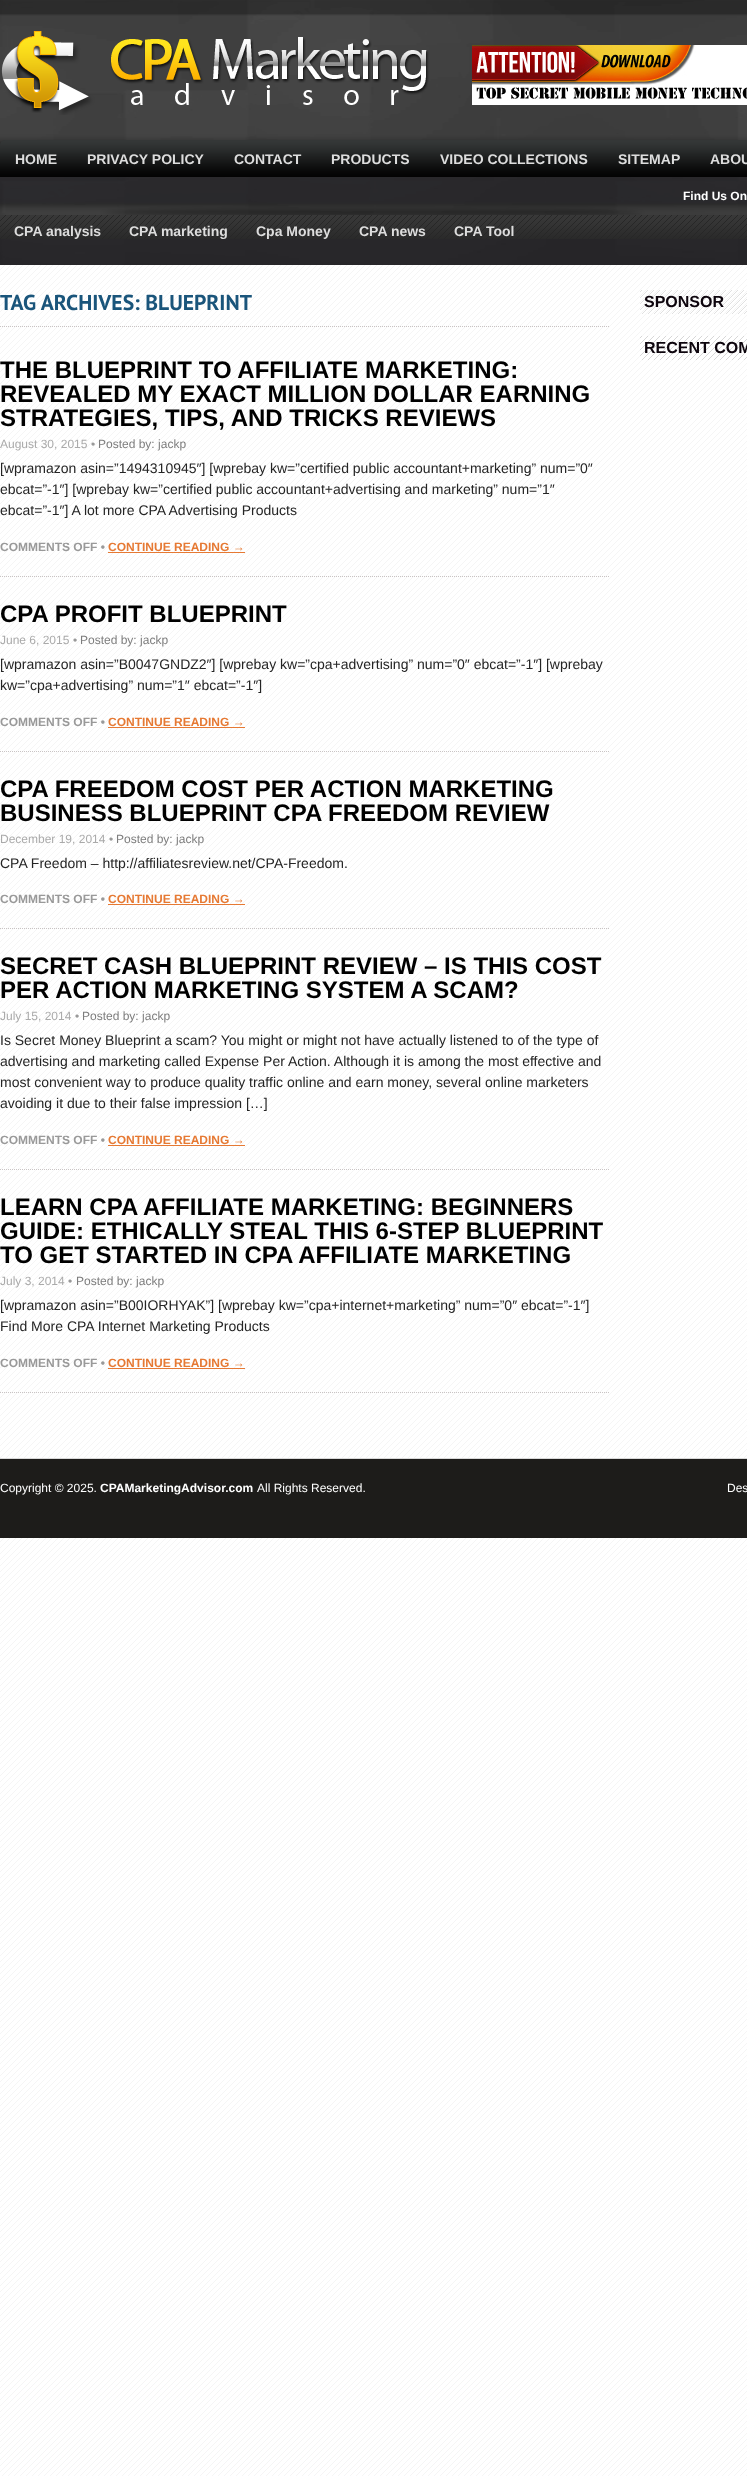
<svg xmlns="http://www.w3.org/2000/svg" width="747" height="2476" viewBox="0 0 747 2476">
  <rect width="100%" height="100%" fill="#ffffff"/>
  <image x="0" y="265" width="747" height="2211" href="img1.png"/>
  <image x="0" y="0" width="747" height="265" href="img2.png"/>
  <image x="1" y="31" width="428" height="84" href="img3.png"/>
  <image x="472" y="45" width="275" height="60" href="img4.png"/>
  <image x="0" y="140" width="747" height="37" href="img5.png"/>
  <text x="15" y="164" font-family="Liberation Sans" font-size="14" font-weight="bold" fill="#dddddd">HOME</text>
  <text x="87" y="164" font-family="Liberation Sans" font-size="14" font-weight="bold" fill="#dddddd">PRIVACY POLICY</text>
  <text x="234" y="164" font-family="Liberation Sans" font-size="14" font-weight="bold" fill="#dddddd">CONTACT</text>
  <text x="331" y="164" font-family="Liberation Sans" font-size="14" font-weight="bold" fill="#dddddd">PRODUCTS</text>
  <text x="440" y="164" font-family="Liberation Sans" font-size="14" font-weight="bold" fill="#dddddd">VIDEO COLLECTIONS</text>
  <text x="618" y="164" font-family="Liberation Sans" font-size="14" font-weight="bold" fill="#dddddd">SITEMAP</text>
  <text x="710" y="164" font-family="Liberation Sans" font-size="14" font-weight="bold" fill="#dddddd">ABOU</text>
  <text x="683" y="200" font-family="Liberation Sans" font-size="12" font-weight="bold" fill="#ffffff">Find Us On</text>
  <image x="0" y="215" width="747" height="24" href="img6.png"/>
  <text x="14" y="236" font-family="Liberation Sans" font-size="14" font-weight="bold" fill="#dddddd">CPA analysis</text>
  <text x="129" y="236" font-family="Liberation Sans" font-size="14" font-weight="bold" fill="#dddddd">CPA marketing</text>
  <text x="256" y="236" font-family="Liberation Sans" font-size="14" font-weight="bold" fill="#dddddd">Cpa Money</text>
  <text x="359" y="236" font-family="Liberation Sans" font-size="14" font-weight="bold" fill="#dddddd">CPA news</text>
  <text x="454" y="236" font-family="Liberation Sans" font-size="14" font-weight="bold" fill="#dddddd">CPA Tool</text>
  <path d="M0 326.5H610" fill="none" stroke="#c9c4c4" stroke-dasharray="1 1"/>
  <text x="0" y="310" font-family="PT Sans" font-size="21.6" font-weight="bold" fill="#1a557b">TAG ARCHIVES: BLUEPRINT</text>
  <path d="M0 576.5H610" fill="none" stroke="#c9c4c4" stroke-dasharray="1 1"/>
  <text x="0" y="378" font-family="Liberation Sans" font-size="24" font-weight="bold" fill="#000000">THE BLUEPRINT TO AFFILIATE MARKETING:</text>
  <text x="0" y="402" font-family="Liberation Sans" font-size="24" font-weight="bold" fill="#000000">REVEALED MY EXACT MILLION DOLLAR EARNING</text>
  <text x="0" y="426" font-family="Liberation Sans" font-size="24" font-weight="bold" fill="#000000">STRATEGIES, TIPS, AND TRICKS REVIEWS</text>
  <text x="0" y="448" font-family="Liberation Sans" font-size="12" fill="#aaaaaa">August 30, 2015</text>
  <text x="91" y="448" font-family="Liberation Sans" font-size="12" fill="#999999">•</text>
  <text x="98" y="448" font-family="Liberation Sans" font-size="12" fill="#7d7d7d">Posted by: jackp</text>
  <text x="0" y="473" font-family="Liberation Sans" font-size="14" fill="#242424">[wpramazon asin=”1494310945″] [wprebay kw=”certified public accountant+marketing” num=”0″</text>
  <text x="0" y="494" font-family="Liberation Sans" font-size="14" fill="#242424">ebcat=”-1″] [wprebay kw=”certified public accountant+advertising and marketing” num=”1″</text>
  <text x="0" y="515" font-family="Liberation Sans" font-size="14" fill="#242424">ebcat=”-1″] A lot more CPA Advertising Products</text>
  <text x="0" y="551" font-family="Liberation Sans" font-size="12" font-weight="bold" fill="#999999">COMMENTS OFF •</text>
  <text x="108" y="551" font-family="Liberation Sans" font-size="12" font-weight="bold" fill="#e67933">CONTINUE READING →</text>
  <rect x="108" y="552" width="137" height="1" fill="#e67933"/>
  <path d="M0 751.5H610" fill="none" stroke="#c9c4c4" stroke-dasharray="1 1"/>
  <text x="0" y="622" font-family="Liberation Sans" font-size="24" font-weight="bold" fill="#000000">CPA PROFIT BLUEPRINT</text>
  <text x="0" y="644" font-family="Liberation Sans" font-size="12" fill="#aaaaaa">June 6, 2015</text>
  <text x="73" y="644" font-family="Liberation Sans" font-size="12" fill="#999999">•</text>
  <text x="80" y="644" font-family="Liberation Sans" font-size="12" fill="#7d7d7d">Posted by: jackp</text>
  <text x="0" y="669" font-family="Liberation Sans" font-size="14" fill="#242424">[wpramazon asin=”B0047GNDZ2″] [wprebay kw=”cpa+advertising” num=”0″ ebcat=”-1″] [wprebay</text>
  <text x="0" y="690" font-family="Liberation Sans" font-size="14" fill="#242424">kw=”cpa+advertising” num=”1″ ebcat=”-1″]</text>
  <text x="0" y="726" font-family="Liberation Sans" font-size="12" font-weight="bold" fill="#999999">COMMENTS OFF •</text>
  <text x="108" y="726" font-family="Liberation Sans" font-size="12" font-weight="bold" fill="#e67933">CONTINUE READING →</text>
  <rect x="108" y="727" width="137" height="1" fill="#e67933"/>
  <path d="M0 928.5H610" fill="none" stroke="#c9c4c4" stroke-dasharray="1 1"/>
  <text x="0" y="797" font-family="Liberation Sans" font-size="24" font-weight="bold" fill="#000000">CPA FREEDOM COST PER ACTION MARKETING</text>
  <text x="0" y="821" font-family="Liberation Sans" font-size="24" font-weight="bold" fill="#000000">BUSINESS BLUEPRINT CPA FREEDOM REVIEW</text>
  <text x="0" y="843" font-family="Liberation Sans" font-size="12" fill="#aaaaaa">December 19, 2014</text>
  <text x="109" y="843" font-family="Liberation Sans" font-size="12" fill="#999999">•</text>
  <text x="116" y="843" font-family="Liberation Sans" font-size="12" fill="#7d7d7d">Posted by: jackp</text>
  <text x="0" y="868" font-family="Liberation Sans" font-size="14" fill="#242424">CPA Freedom – http://affiliatesreview.net/CPA-Freedom.</text>
  <text x="0" y="903" font-family="Liberation Sans" font-size="12" font-weight="bold" fill="#999999">COMMENTS OFF •</text>
  <text x="108" y="903" font-family="Liberation Sans" font-size="12" font-weight="bold" fill="#e67933">CONTINUE READING →</text>
  <rect x="108" y="904" width="137" height="1" fill="#e67933"/>
  <path d="M0 1169.5H610" fill="none" stroke="#c9c4c4" stroke-dasharray="1 1"/>
  <text x="0" y="974" font-family="Liberation Sans" font-size="24" font-weight="bold" fill="#000000">SECRET CASH BLUEPRINT REVIEW – IS THIS COST</text>
  <text x="0" y="998" font-family="Liberation Sans" font-size="24" font-weight="bold" fill="#000000">PER ACTION MARKETING SYSTEM A SCAM?</text>
  <text x="0" y="1020" font-family="Liberation Sans" font-size="12" fill="#aaaaaa">July 15, 2014</text>
  <text x="75" y="1020" font-family="Liberation Sans" font-size="12" fill="#999999">•</text>
  <text x="82" y="1020" font-family="Liberation Sans" font-size="12" fill="#7d7d7d">Posted by: jackp</text>
  <text x="0" y="1045" font-family="Liberation Sans" font-size="14" fill="#242424">Is Secret Money Blueprint a scam? You might or might not have actually listened to of the type of</text>
  <text x="0" y="1066" font-family="Liberation Sans" font-size="14" fill="#242424">advertising and marketing called Expense Per Action. Although it is among the most effective and</text>
  <text x="0" y="1087" font-family="Liberation Sans" font-size="14" fill="#242424">most convenient way to produce quality traffic online and earn money, several online marketers</text>
  <text x="0" y="1108" font-family="Liberation Sans" font-size="14" fill="#242424">avoiding it due to their false impression […]</text>
  <text x="0" y="1144" font-family="Liberation Sans" font-size="12" font-weight="bold" fill="#999999">COMMENTS OFF •</text>
  <text x="108" y="1144" font-family="Liberation Sans" font-size="12" font-weight="bold" fill="#e67933">CONTINUE READING →</text>
  <rect x="108" y="1145" width="137" height="1" fill="#e67933"/>
  <path d="M0 1392.5H610" fill="none" stroke="#c9c4c4" stroke-dasharray="1 1"/>
  <text x="0" y="1215" font-family="Liberation Sans" font-size="24" font-weight="bold" fill="#000000">LEARN CPA AFFILIATE MARKETING: BEGINNERS</text>
  <text x="0" y="1239" font-family="Liberation Sans" font-size="24" font-weight="bold" fill="#000000">GUIDE: ETHICALLY STEAL THIS 6-STEP BLUEPRINT</text>
  <text x="0" y="1263" font-family="Liberation Sans" font-size="24" font-weight="bold" fill="#000000">TO GET STARTED IN CPA AFFILIATE MARKETING</text>
  <text x="0" y="1285" font-family="Liberation Sans" font-size="12" fill="#aaaaaa">July 3, 2014</text>
  <text x="68" y="1285" font-family="Liberation Sans" font-size="12" fill="#999999">•</text>
  <text x="76" y="1285" font-family="Liberation Sans" font-size="12" fill="#7d7d7d">Posted by: jackp</text>
  <text x="0" y="1310" font-family="Liberation Sans" font-size="14" fill="#242424">[wpramazon asin=”B00IORHYAK”] [wprebay kw=”cpa+internet+marketing” num=”0″ ebcat=”-1″]</text>
  <text x="0" y="1331" font-family="Liberation Sans" font-size="14" fill="#242424">Find More CPA Internet Marketing Products</text>
  <text x="0" y="1367" font-family="Liberation Sans" font-size="12" font-weight="bold" fill="#999999">COMMENTS OFF •</text>
  <text x="108" y="1367" font-family="Liberation Sans" font-size="12" font-weight="bold" fill="#e67933">CONTINUE READING →</text>
  <rect x="108" y="1368" width="137" height="1" fill="#e67933"/>
  <image x="640" y="290" width="107" height="24" href="img7.png"/>
  <text x="644" y="307" font-family="Liberation Sans" font-size="16" font-weight="bold" fill="#0d050d">SPONSOR</text>
  <image x="640" y="336" width="107" height="24" href="img8.png"/>
  <text x="644" y="353" font-family="Liberation Sans" font-size="16" font-weight="bold" fill="#0d050d">RECENT COM</text>
  <rect x="0" y="1459" width="747" height="79" fill="#1d1c1a"/>
  <rect x="0" y="1458" width="747" height="1" fill="#d9d9d9"/>
  <text x="0" y="1492" font-family="Liberation Sans" font-size="12" fill="#ffffff">Copyright © 2025.</text>
  <text x="100" y="1492" font-family="Liberation Sans" font-size="12" font-weight="bold" fill="#ffffff">CPAMarketingAdvisor.com</text>
  <text x="257" y="1492" font-family="Liberation Sans" font-size="12" fill="#ffffff">All Rights Reserved.</text>
  <text x="727" y="1492" font-family="Liberation Sans" font-size="12" fill="#ffffff">Des</text>
</svg>
